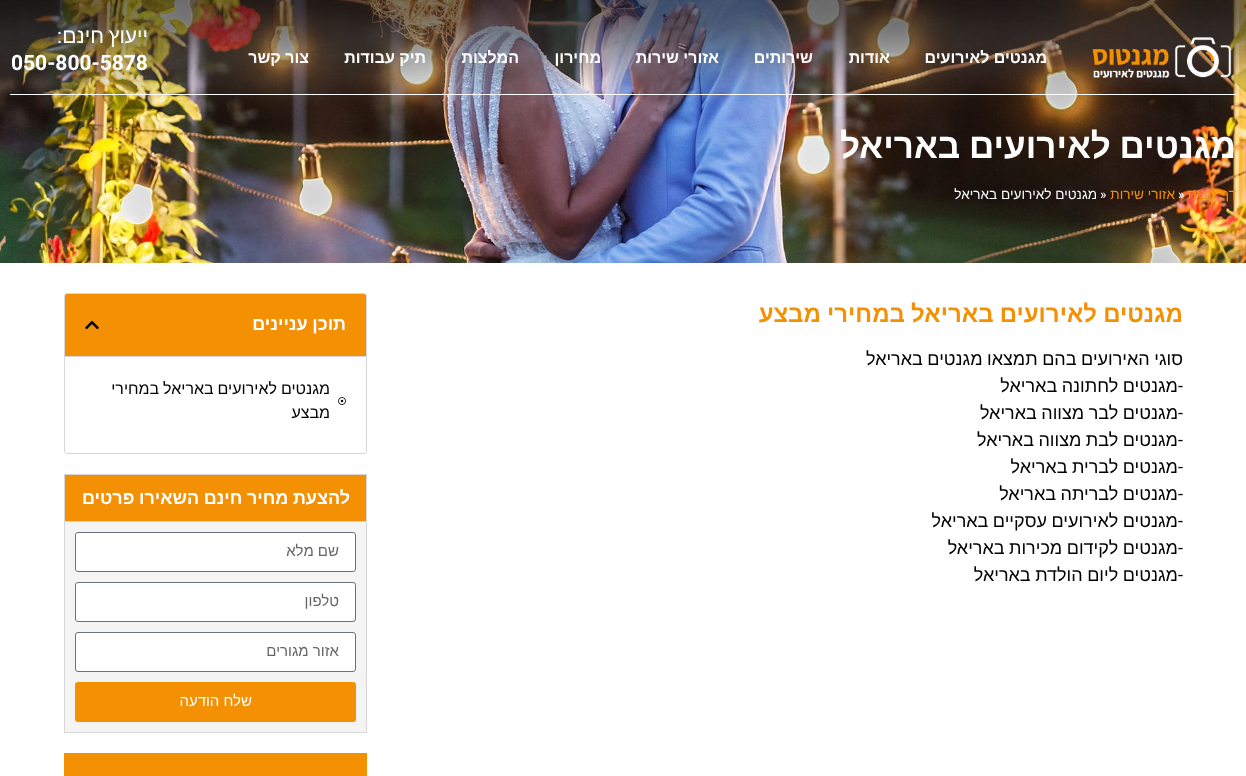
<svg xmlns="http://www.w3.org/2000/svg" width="1246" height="776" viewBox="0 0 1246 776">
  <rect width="100%" height="100%" fill="#ffffff"/>
  <image x="0" y="0" width="1246" height="263" href="img2.png"/>
  <image x="1092" y="37" width="140" height="42" href="img1.png"/>
  <text x="1047" y="63" font-family="Liberation Sans" font-size="16" font-weight="bold" direction="rtl" fill="#ffffff">מגנטים לאירועים</text>
  <text x="890" y="63" font-family="Liberation Sans" font-size="16" font-weight="bold" direction="rtl" fill="#ffffff">אודות</text>
  <text x="813" y="63" font-family="Liberation Sans" font-size="16" font-weight="bold" direction="rtl" fill="#ffffff">שירותים</text>
  <text x="719" y="63" font-family="Liberation Sans" font-size="16" font-weight="bold" direction="rtl" fill="#ffffff">אזורי שירות</text>
  <text x="601" y="63" font-family="Liberation Sans" font-size="16" font-weight="bold" direction="rtl" fill="#ffffff">מחירון</text>
  <text x="519" y="63" font-family="Liberation Sans" font-size="16" font-weight="bold" direction="rtl" fill="#ffffff">המלצות</text>
  <text x="426" y="63" font-family="Liberation Sans" font-size="16" font-weight="bold" direction="rtl" fill="#ffffff">תיק עבודות</text>
  <text x="309" y="63" font-family="Liberation Sans" font-size="16" font-weight="bold" direction="rtl" fill="#ffffff">צור קשר</text>
  <text x="148" y="43" word-spacing="-1" font-family="Liberation Sans" font-size="21" direction="rtl" fill="#ffffff">ייעוץ חינם</text>
  <text x="62" y="43" font-family="Heebo" font-size="21" direction="rtl" fill="#ffffff">:</text>
  <text x="11" y="70" font-family="Heebo" font-size="21" font-weight="bold" fill="#ffffff">050-800-5878</text>
  <rect x="10" y="94" width="1226" height="1" fill="#ffffff"/>
  <text x="1236" y="158" word-spacing="-1" font-family="Liberation Sans" font-size="35" font-weight="bold" direction="rtl" fill="#ffffff">מגנטים לאירועים באריאל</text>
  <text x="1236" y="199" font-family="Liberation Sans" font-size="13.6" direction="rtl" fill="#f49004">דף הבית</text>
  <text x="1178" y="199" font-family="Heebo" font-size="13.6" fill="#ffffff">»</text>
  <text x="1175" y="199" font-family="Liberation Sans" font-size="13.6" direction="rtl" fill="#f49004">אזורי שירות</text>
  <text x="1100" y="199" font-family="Heebo" font-size="13.6" fill="#ffffff">»</text>
  <text x="1097" y="199" font-family="Liberation Sans" font-size="13.6" direction="rtl" fill="#ffffff">מגנטים לאירועים באריאל</text>
  <text x="1183" y="322" word-spacing="-0.5" font-family="Liberation Sans" font-size="24" font-weight="bold" direction="rtl" fill="#f49004">מגנטים לאירועים באריאל במחירי מבצע</text>
  <text x="1183" y="365" word-spacing="-0.5" font-family="Liberation Sans" font-size="18" direction="rtl" fill="#000000">סוגי האירועים בהם תמצאו מגנטים באריאל</text>
  <text x="1183" y="392" font-family="Heebo" font-size="18" direction="rtl" fill="#000000">-</text>
  <text x="1178" y="392" word-spacing="-0.5" font-family="Liberation Sans" font-size="18" direction="rtl" fill="#000000">מגנטים לחתונה באריאל</text>
  <text x="1178" y="419" word-spacing="-0.5" font-family="Liberation Sans" font-size="18" direction="rtl" fill="#000000">מגנטים לבר מצווה באריאל</text>
  <text x="1183" y="419" font-family="Heebo" font-size="18" direction="rtl" fill="#000000">-</text>
  <text x="1178" y="446" word-spacing="-0.5" font-family="Liberation Sans" font-size="18" direction="rtl" fill="#000000">מגנטים לבת מצווה באריאל</text>
  <text x="1183" y="446" font-family="Heebo" font-size="18" direction="rtl" fill="#000000">-</text>
  <text x="1183" y="473" font-family="Heebo" font-size="18" direction="rtl" fill="#000000">-</text>
  <text x="1178" y="473" word-spacing="-0.5" font-family="Liberation Sans" font-size="18" direction="rtl" fill="#000000">מגנטים לברית באריאל</text>
  <text x="1183" y="500" font-family="Heebo" font-size="18" direction="rtl" fill="#000000">-</text>
  <text x="1178" y="500" word-spacing="-0.5" font-family="Liberation Sans" font-size="18" direction="rtl" fill="#000000">מגנטים לבריתה באריאל</text>
  <text x="1178" y="527" word-spacing="-0.5" font-family="Liberation Sans" font-size="18" direction="rtl" fill="#000000">מגנטים לאירועים עסקיים באריאל</text>
  <text x="1183" y="527" font-family="Heebo" font-size="18" direction="rtl" fill="#000000">-</text>
  <text x="1178" y="554" word-spacing="-0.5" font-family="Liberation Sans" font-size="18" direction="rtl" fill="#000000">מגנטים לקידום מכירות באריאל</text>
  <text x="1183" y="554" font-family="Heebo" font-size="18" direction="rtl" fill="#000000">-</text>
  <text x="1178" y="581" word-spacing="-0.5" font-family="Liberation Sans" font-size="18" direction="rtl" fill="#000000">מגנטים ליום הולדת באריאל</text>
  <text x="1183" y="581" font-family="Heebo" font-size="18" direction="rtl" fill="#000000">-</text>
  <rect x="64.5" y="293.5" width="302" height="160" rx="2.5" fill="none" stroke="#d7d7d7"/>
  <path d="M67 294H364C365 294 366 295 366 296V357H65V296C65 295 66 294 67 294Z" fill="#f49004"/>
  <rect x="65" y="356" width="301" height="1" fill="#d7d7d7"/>
  <text x="346" y="330" word-spacing="-0.5" font-family="Liberation Sans" font-size="18" font-weight="bold" direction="rtl" fill="#ffffff">תוכן עניינים</text>
  <image x="85" y="320" width="14" height="10" href="img3.png"/>
  <image x="338" y="397" width="8" height="8" href="img4.png"/>
  <text x="330" y="394" word-spacing="-0.5" font-family="Liberation Sans" font-size="16" direction="rtl" fill="#000000">מגנטים לאירועים באריאל במחירי</text>
  <text x="330" y="418" font-family="Liberation Sans" font-size="16" direction="rtl" fill="#000000">מבצע</text>
  <rect x="65" y="475" width="301" height="46" fill="#f49004"/>
  <rect x="64.5" y="474.5" width="302" height="49" fill="none" stroke="#d7d7d7"/>
  <text x="350" y="504" word-spacing="-0.5" font-family="Liberation Sans" font-size="18" font-weight="bold" direction="rtl" fill="#ffffff">להצעת מחיר חינם השאירו פרטים</text>
  <rect x="64.5" y="521.5" width="302" height="211" fill="#f4f4f4" stroke="#d7d7d7"/>
  <rect x="75.5" y="532.5" width="280" height="39" rx="2.5" fill="#ffffff" stroke="#69727d"/>
  <text x="339" y="556" font-family="Liberation Sans" font-size="15" direction="rtl" fill="#666666">שם מלא</text>
  <rect x="75.5" y="582.5" width="280" height="39" rx="2.5" fill="#ffffff" stroke="#69727d"/>
  <text x="339" y="606" font-family="Liberation Sans" font-size="15" direction="rtl" fill="#666666">טלפון</text>
  <rect x="75.5" y="632.5" width="280" height="39" rx="2.5" fill="#ffffff" stroke="#69727d"/>
  <text x="339" y="656" font-family="Liberation Sans" font-size="15" direction="rtl" fill="#666666">אזור מגורים</text>
  <rect x="75" y="682" width="281" height="40" rx="3" fill="#f49004"/>
  <text x="252" y="706" font-family="Liberation Sans" font-size="15" direction="rtl" fill="#ffffff">שלח הודעה</text>
  <rect x="64" y="753" width="303" height="23" fill="#f49004"/>
</svg>
